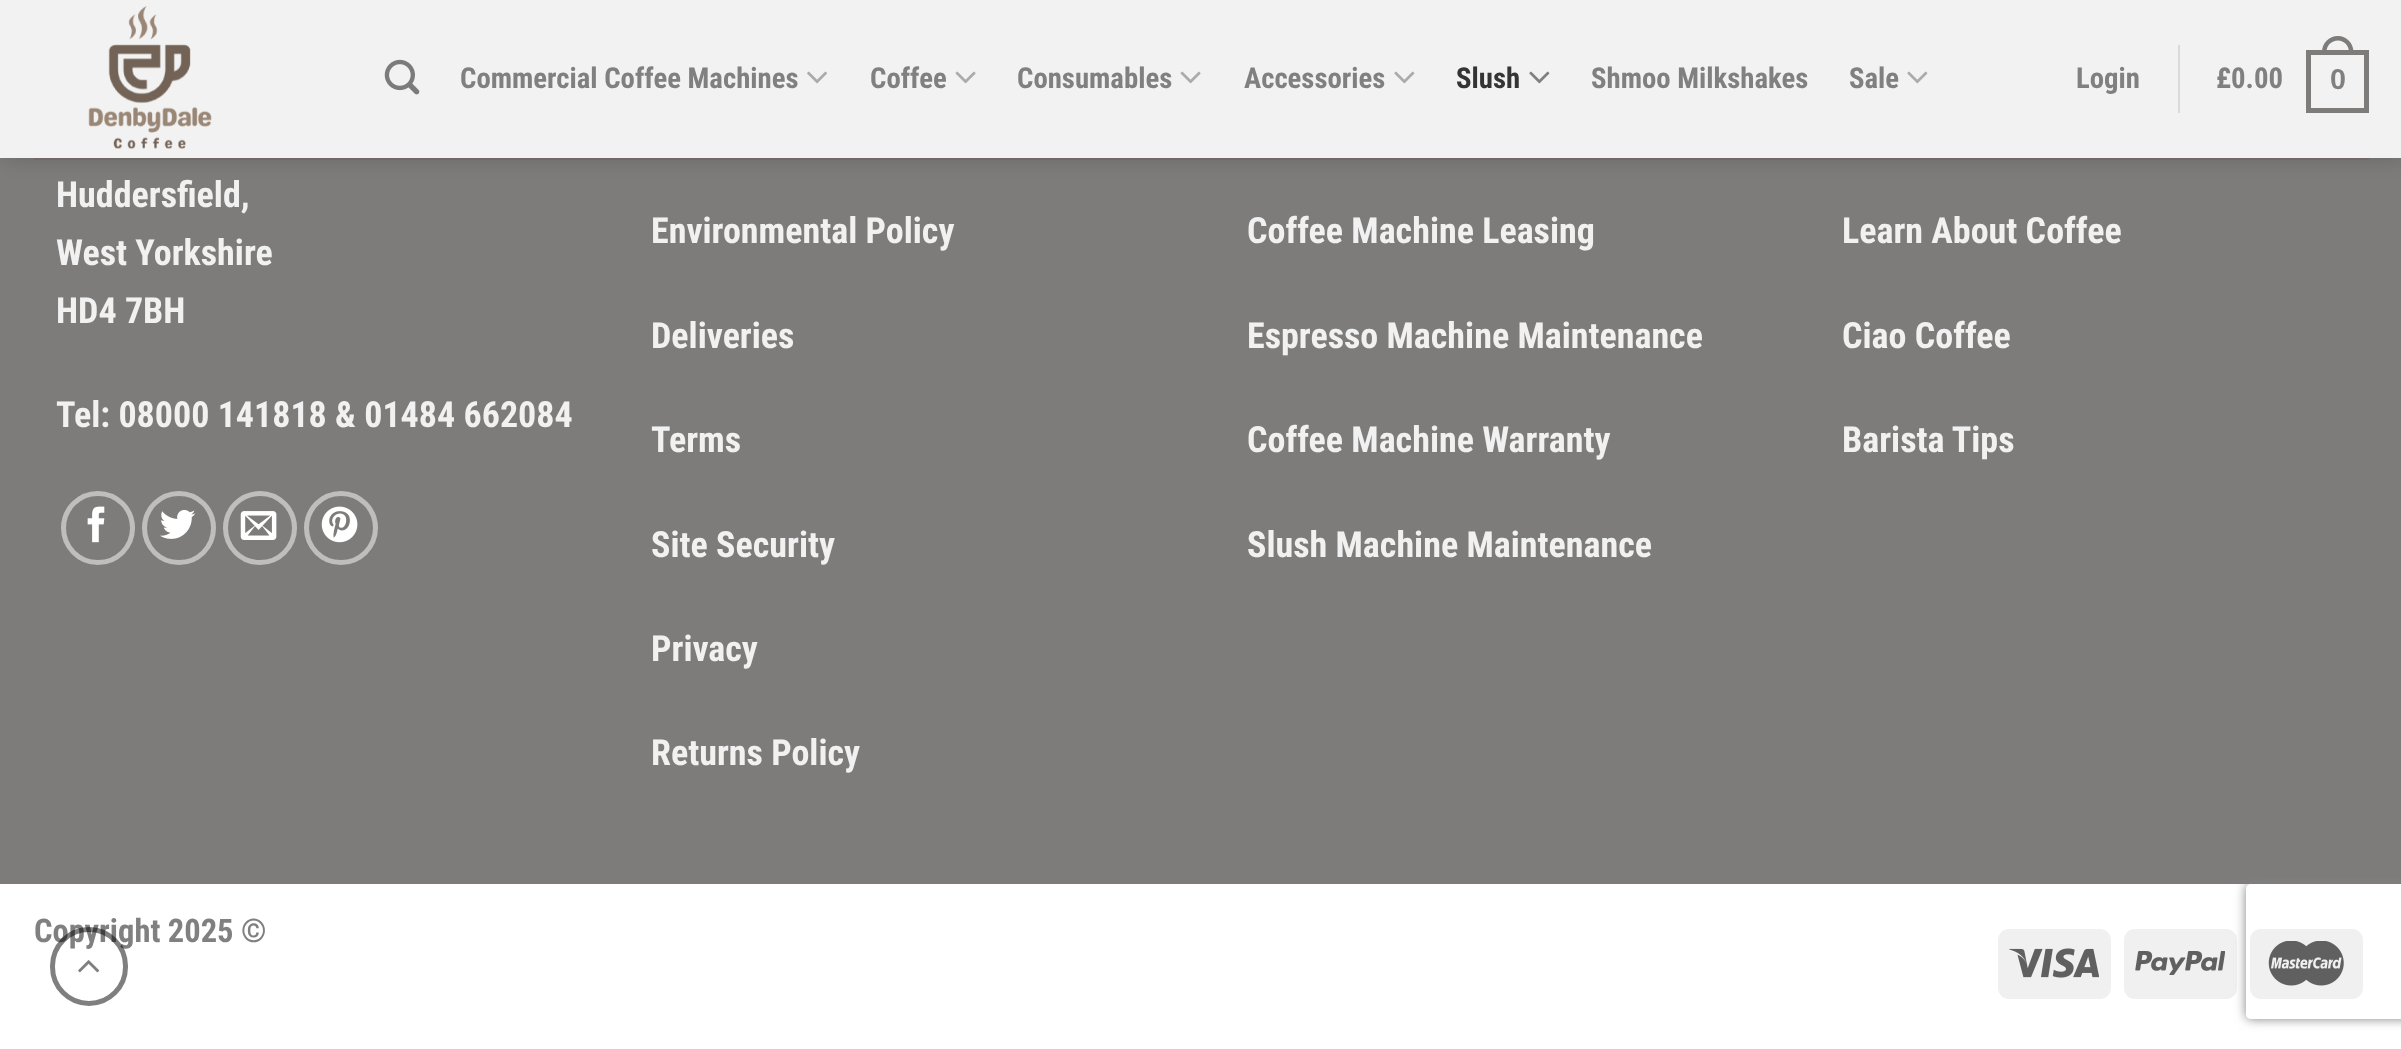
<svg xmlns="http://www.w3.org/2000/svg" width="2401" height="1049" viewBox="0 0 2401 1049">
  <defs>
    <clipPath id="clip1"><path d="M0 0H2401V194H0ZM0 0H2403V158H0Z" clip-rule="evenodd"/></clipPath>
    <filter id="blur1" x="-50%" y="-200%" width="200%" height="500%"><feGaussianBlur stdDeviation="11"/></filter>
    <clipPath id="clip2"><path d="M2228 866H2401V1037H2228ZM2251 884H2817C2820 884 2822 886 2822 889V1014C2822 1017 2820 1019 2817 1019H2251C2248 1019 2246 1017 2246 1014V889C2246 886 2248 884 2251 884Z" clip-rule="evenodd"/></clipPath>
    <filter id="blur2" x="-50%" y="-200%" width="200%" height="500%"><feGaussianBlur stdDeviation="5.5"/></filter>
  </defs>
  <rect width="100%" height="100%" fill="#ffffff"/>
  <rect x="0" y="0" width="2401" height="884" fill="#7e7c7b"/>
  <g clip-path="url(#clip1)">
    <rect x="2" y="2" width="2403" height="158" fill="#000000" fill-opacity="0.15" filter="url(#blur1)"/>
  </g>
  <rect x="0" y="0" width="2401" height="158" fill="#ffffff" fill-opacity="0.9"/>
  <image x="88" y="6" width="124" height="143" href="img1.png"/>
  <image x="384" y="59" width="36" height="36" href="img2.png"/>
  <text x="460" y="88" font-family="Roboto Condensed" font-size="28.75" font-weight="bold" fill="#808080">Commercial Coffee Machines</text>
  <image x="807" y="71" width="20" height="13" href="img3.png"/>
  <text x="870" y="88" font-family="Roboto Condensed" font-size="28.75" font-weight="bold" fill="#808080">Coffee</text>
  <image x="955" y="71" width="21" height="13" href="img4.png"/>
  <text x="1017" y="88" font-family="Roboto Condensed" font-size="28.75" font-weight="bold" fill="#808080">Consumables</text>
  <image x="1180" y="71" width="21" height="13" href="img4.png"/>
  <text x="1244" y="88" font-family="Roboto Condensed" font-size="28.75" font-weight="bold" fill="#808080">Accessories</text>
  <image x="1394" y="71" width="21" height="13" href="img5.png"/>
  <text x="1456" y="88" font-family="Roboto Condensed" font-size="28.75" font-weight="bold" fill="#343434">Slush</text>
  <image x="1529" y="71" width="21" height="13" href="img6.png"/>
  <text x="1591" y="88" font-family="Roboto Condensed" font-size="28.75" font-weight="bold" fill="#808080">Shmoo Milkshakes</text>
  <text x="1849" y="88" font-family="Roboto Condensed" font-size="28.75" font-weight="bold" fill="#808080">Sale</text>
  <image x="1907" y="71" width="21" height="13" href="img5.png"/>
  <text x="2076" y="88" font-family="Roboto Condensed" font-size="28.75" font-weight="bold" fill="#808080">Login</text>
  <rect x="2178" y="45" width="2" height="68" fill="#dadada"/>
  <text x="2216" y="88" font-family="Roboto Condensed" font-size="28.75" font-weight="bold" fill="#808080">£0.00</text>
  <rect x="2308.5" y="52.5" width="58" height="58" fill="none" stroke="#7e7c7b" stroke-width="5"/>
  <path d="M2338 36C2346.5 36 2353.5 43 2353.5 52V54H2322V52C2322 43 2329 36 2338 36ZM2338 40.5C2344 40.5 2349 45.5 2349 52V54H2326.5V52C2326.5 45.5 2331.5 40.5 2338 40.5Z" fill="#7e7c7b" fill-rule="evenodd"/>
  <text x="2330" y="89" font-family="Liberation Sans" font-size="28.75" font-weight="bold" fill="#808080">0</text>
  <rect x="34" y="158" width="2335" height="2" fill="#706a69"/>
  <text x="56" y="207" font-family="Roboto Condensed" font-size="36" font-weight="bold" fill="#f1f1f1">Huddersfield,</text>
  <text x="56" y="265" font-family="Roboto Condensed" font-size="36" font-weight="bold" fill="#f1f1f1">West Yorkshire</text>
  <text x="56" y="323" font-family="Roboto Condensed" font-size="36" font-weight="bold" fill="#f1f1f1">HD4 7BH</text>
  <text x="56" y="427" font-family="Roboto Condensed" font-size="36" font-weight="bold" fill="#f1f1f1">Tel: 08000 141818 &amp; 01484 662084</text>
  <circle cx="98" cy="528" r="34.5" fill="none" stroke="#bfbebd" stroke-width="5"/>
  <image x="87" y="506" width="18" height="37" href="img7.png"/>
  <circle cx="179" cy="528" r="34.5" fill="none" stroke="#bfbebd" stroke-width="5"/>
  <image x="160" y="510" width="36" height="29" href="img8.png"/>
  <circle cx="260" cy="528" r="34.5" fill="none" stroke="#bfbebd" stroke-width="5"/>
  <image x="240" y="511" width="37" height="29" href="img9.png"/>
  <circle cx="341" cy="528" r="34.5" fill="none" stroke="#bfbebd" stroke-width="5"/>
  <image x="321" y="506" width="37" height="37" href="img10.png"/>
  <text x="651" y="243" font-family="Roboto Condensed" font-size="36" font-weight="bold" fill="#f1f1f1">Environmental Policy</text>
  <text x="651" y="348" font-family="Roboto Condensed" font-size="36" font-weight="bold" fill="#f1f1f1">Deliveries</text>
  <text x="651" y="452" font-family="Roboto Condensed" font-size="36" font-weight="bold" fill="#f1f1f1">Terms</text>
  <text x="651" y="557" font-family="Roboto Condensed" font-size="36" font-weight="bold" fill="#f1f1f1">Site Security</text>
  <text x="651" y="661" font-family="Roboto Condensed" font-size="36" font-weight="bold" fill="#f1f1f1">Privacy</text>
  <text x="651" y="765" font-family="Roboto Condensed" font-size="36" font-weight="bold" fill="#f1f1f1">Returns Policy</text>
  <text x="1247" y="243" font-family="Roboto Condensed" font-size="36" font-weight="bold" fill="#f1f1f1">Coffee Machine Leasing</text>
  <text x="1247" y="348" font-family="Roboto Condensed" font-size="36" font-weight="bold" fill="#f1f1f1">Espresso Machine Maintenance</text>
  <text x="1247" y="452" font-family="Roboto Condensed" font-size="36" font-weight="bold" fill="#f1f1f1">Coffee Machine Warranty</text>
  <text x="1247" y="557" font-family="Roboto Condensed" font-size="36" font-weight="bold" fill="#f1f1f1">Slush Machine Maintenance</text>
  <text x="1842" y="243" font-family="Roboto Condensed" font-size="36" font-weight="bold" fill="#f1f1f1">Learn About Coffee</text>
  <text x="1842" y="348" font-family="Roboto Condensed" font-size="36" font-weight="bold" fill="#f1f1f1">Ciao Coffee</text>
  <text x="1842" y="452" font-family="Roboto Condensed" font-size="36" font-weight="bold" fill="#f1f1f1">Barista Tips</text>
  <text x="34" y="942" font-family="Roboto Condensed" font-size="32.5" font-weight="bold" fill="#808080">Copyright 2025 ©</text>
  <rect x="52.5" y="929.5" width="73" height="74" rx="36.5" fill="none" stroke="#000000" stroke-opacity="0.5" stroke-width="5"/>
  <image x="78" y="960" width="21" height="13" href="img11.png"/>
  <rect x="1998" y="929" width="113" height="70" rx="11" fill="#f0f0f0"/>
  <image x="2009" y="948" width="90" height="30" href="img12.png"/>
  <rect x="2124" y="929" width="113" height="70" rx="11" fill="#f0f0f0"/>
  <image x="2135" y="951" width="90" height="24" href="img13.png"/>
  <rect x="2250" y="929" width="113" height="70" rx="11" fill="#f0f0f0"/>
  <image x="2268" y="941" width="76" height="45" href="img14.png"/>
  <g clip-path="url(#clip2)">
    <rect x="2246" y="884" width="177" height="135" rx="5" fill="#808080" filter="url(#blur2)"/>
  </g>
</svg>
